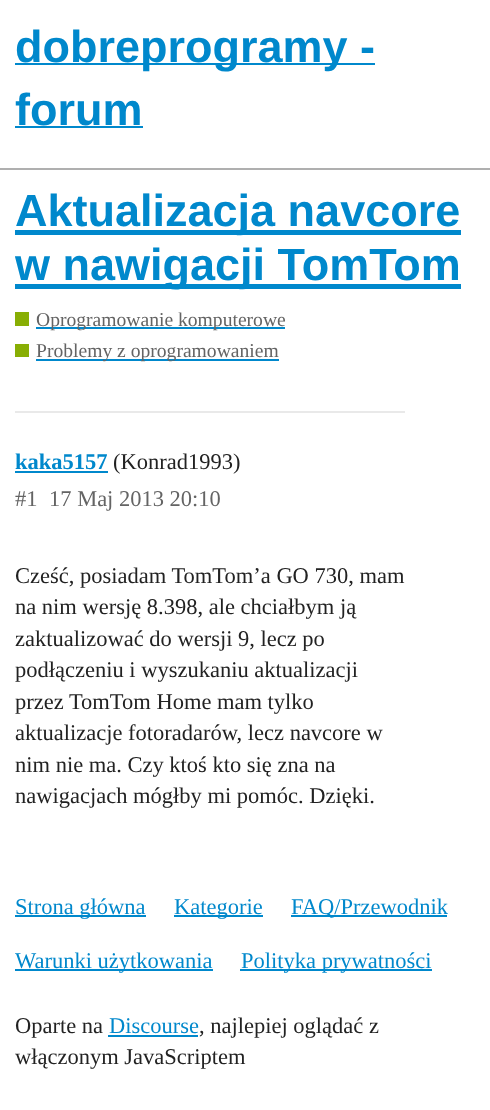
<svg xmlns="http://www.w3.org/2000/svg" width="490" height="1110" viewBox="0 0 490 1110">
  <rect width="100%" height="100%" fill="#ffffff"/>
  <rect x="0" y="168" width="490" height="2" fill="#afafaf"/>
  <rect x="15" y="63" width="360" height="2" fill="#0088cc"/>
  <text x="15" y="62" font-family="Liberation Sans" font-size="45" font-weight="bold" fill="#0088cc">dobreprogramy -</text>
  <text x="15" y="125" font-family="Liberation Sans" font-size="45" font-weight="bold" fill="#0088cc">forum</text>
  <rect x="15" y="126" width="128" height="2" fill="#0088cc"/>
  <rect x="15" y="230" width="446" height="5" fill="#0088cc"/>
  <text x="15" y="226" font-family="Liberation Sans" font-size="45" font-weight="bold" fill="#0088cc">Aktualizacja navcore</text>
  <rect x="15" y="284" width="446" height="5" fill="#0088cc"/>
  <text x="15" y="280" font-family="Liberation Sans" font-size="45" font-weight="bold" fill="#0088cc">w nawigacji TomTom</text>
  <rect x="15" y="312" width="14" height="14" fill="#88ae04"/>
  <rect x="36" y="327" width="249" height="2" fill="#0088cc"/>
  <text x="36" y="326" font-family="Liberation Serif" font-size="19.6" fill="#646464">Oprogramowanie komputerowe</text>
  <rect x="15" y="344" width="14" height="13" fill="#88ae04"/>
  <rect x="36" y="359" width="243" height="2" fill="#0088cc"/>
  <text x="36" y="357" font-family="Liberation Serif" font-size="19.6" fill="#646464">Problemy z oprogramowaniem</text>
  <rect x="15" y="411" width="390" height="2" fill="#e9e9e9"/>
  <text x="15" y="469" font-family="Liberation Serif" font-size="22.5" font-weight="bold" fill="#0088cc">kaka5157</text>
  <rect x="15" y="471" width="93" height="2" fill="#0088cc"/>
  <text x="113" y="469" font-family="Liberation Serif" font-size="22.5" fill="#222222">(Konrad1993)</text>
  <text x="15" y="506" font-family="Liberation Serif" font-size="22.5" fill="#646464">#1</text>
  <text x="49" y="506" font-family="Liberation Serif" font-size="22.5" fill="#646464">17 Maj 2013 20:10</text>
  <text x="15" y="583" font-family="Liberation Serif" font-size="22.5" fill="#222222">Cześć, posiadam TomTom’a GO 730, mam</text>
  <text x="15" y="614" font-family="Liberation Serif" font-size="22.5" fill="#222222">na nim wersję 8.398, ale chciałbym ją</text>
  <text x="15" y="646" font-family="Liberation Serif" font-size="22.5" fill="#222222">zaktualizować do wersji 9, lecz po</text>
  <text x="15" y="677" font-family="Liberation Serif" font-size="22.5" fill="#222222">podłączeniu i wyszukaniu aktualizacji</text>
  <text x="15" y="709" font-family="Liberation Serif" font-size="22.5" fill="#222222">przez TomTom Home mam tylko</text>
  <text x="15" y="740" font-family="Liberation Serif" font-size="22.5" fill="#222222">aktualizacje fotoradarów, lecz navcore w</text>
  <text x="15" y="772" font-family="Liberation Serif" font-size="22.5" fill="#222222">nim nie ma. Czy ktoś kto się zna na</text>
  <text x="15" y="803" font-family="Liberation Serif" font-size="22.5" fill="#222222">nawigacjach mógłby mi pomóc. Dzięki.</text>
  <rect x="15" y="915" width="131" height="2" fill="#0088cc"/>
  <text x="15" y="914" font-family="Liberation Serif" font-size="22.5" fill="#0088cc">Strona główna</text>
  <rect x="174" y="915" width="89" height="2" fill="#0088cc"/>
  <text x="174" y="914" font-family="Liberation Serif" font-size="22.5" fill="#0088cc">Kategorie</text>
  <rect x="291" y="915" width="156" height="2" fill="#0088cc"/>
  <text x="291" y="914" font-family="Liberation Serif" font-size="22.5" fill="#0088cc">FAQ/Przewodnik</text>
  <rect x="15" y="969" width="198" height="2" fill="#0088cc"/>
  <text x="15" y="968" font-family="Liberation Serif" font-size="22.5" fill="#0088cc">Warunki użytkowania</text>
  <rect x="240" y="969" width="192" height="2" fill="#0088cc"/>
  <text x="241" y="968" font-family="Liberation Serif" font-size="22.5" fill="#0088cc">Polityka prywatności</text>
  <text x="15" y="1033" font-family="Liberation Serif" font-size="22.5" fill="#222222">Oparte na</text>
  <text x="109" y="1033" font-family="Liberation Serif" font-size="22.5" fill="#0088cc">Discourse</text>
  <rect x="108" y="1035" width="90" height="2" fill="#0088cc"/>
  <text x="199" y="1033" font-family="Liberation Serif" font-size="22.5" fill="#222222">, najlepiej oglądać z</text>
  <text x="15" y="1064" font-family="Liberation Serif" font-size="22.5" fill="#222222">włączonym JavaScriptem</text>
</svg>
